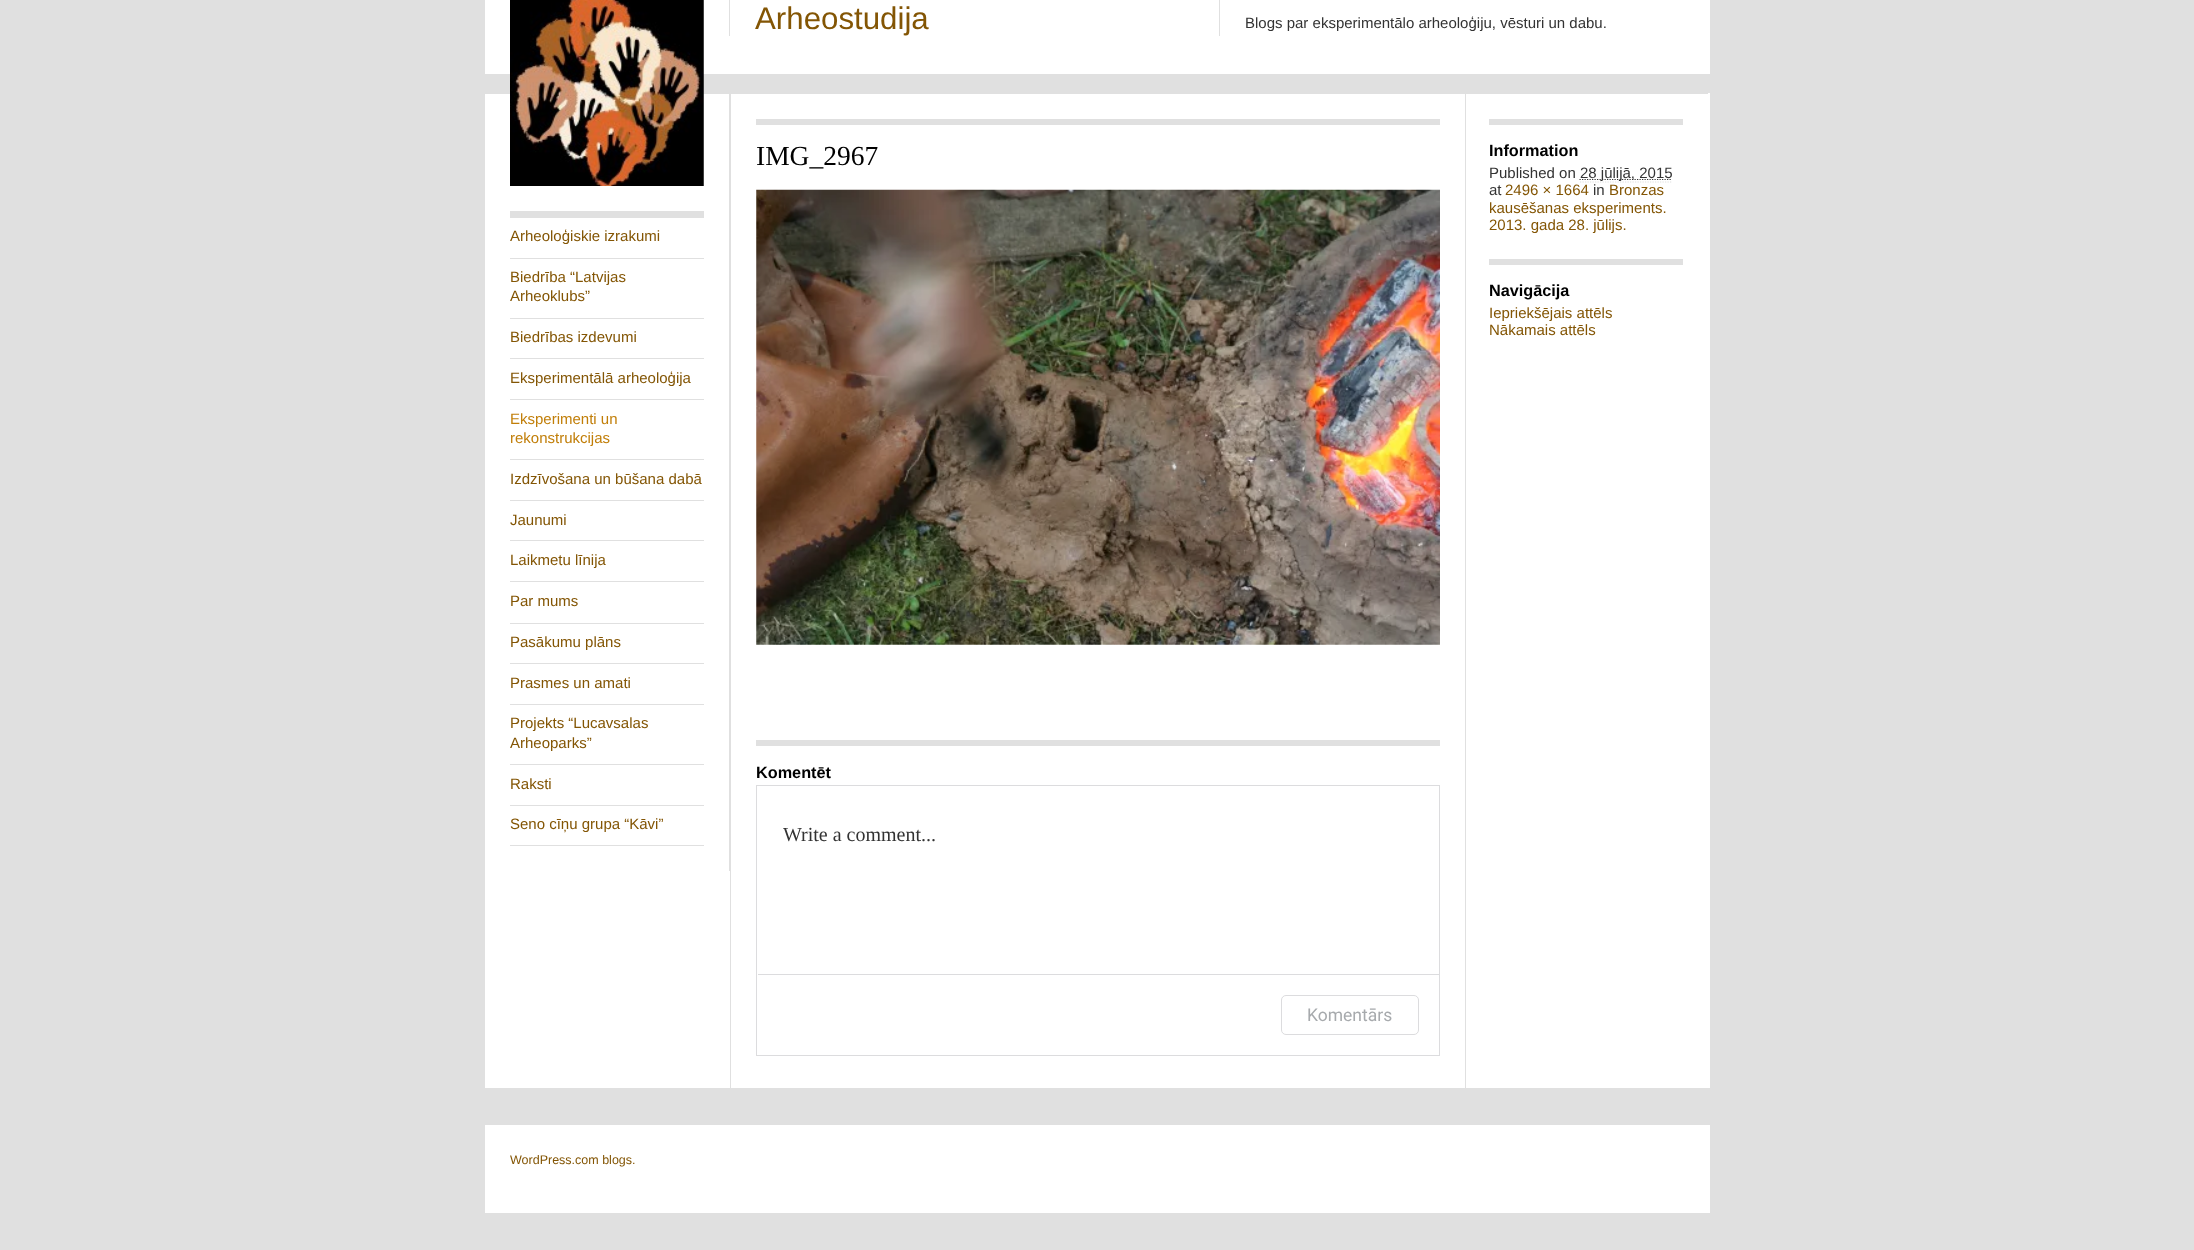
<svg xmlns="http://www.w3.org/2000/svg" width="2194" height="1250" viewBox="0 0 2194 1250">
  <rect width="100%" height="100%" fill="#e0e0e0"/>
  <rect x="485" y="0" width="1225" height="74" fill="#ffffff"/>
  <rect x="485" y="93" width="1225" height="995" fill="#ffffff"/>
  <rect x="485" y="93" width="981" height="1" fill="#e0e0e0"/>
  <image x="510" y="0" width="194" height="186" href="img1.png"/>
  <rect x="729" y="0" width="1" height="36" fill="#e0e0e0"/>
  <text x="755" y="29" font-family="Liberation Sans" font-size="31.25" fill="#835504">Arheostudija</text>
  <rect x="1219" y="0" width="1" height="36" fill="#e0e0e0"/>
  <text x="1245" y="28" font-family="Liberation Sans" font-size="15" fill="#333333">Blogs par eksperimentālo arheoloģiju, vēsturi un dabu.</text>
  <rect x="729" y="93" width="1" height="778" fill="#e0e0e0"/>
  <rect x="510" y="211" width="194" height="7" fill="#e0e0e0"/>
  <rect x="510" y="258" width="194" height="1" fill="#e0e0e0"/>
  <text x="510" y="241" font-family="Liberation Sans" font-size="15" fill="#835504">Arheoloģiskie izrakumi</text>
  <rect x="510" y="318" width="194" height="1" fill="#e0e0e0"/>
  <text x="510" y="282" font-family="Liberation Sans" font-size="15" fill="#835504">Biedrība “Latvijas</text>
  <text x="510" y="301" font-family="Liberation Sans" font-size="15" fill="#835504">Arheoklubs”</text>
  <rect x="510" y="358" width="194" height="1" fill="#e0e0e0"/>
  <text x="510" y="342" font-family="Liberation Sans" font-size="15" fill="#835504">Biedrības izdevumi</text>
  <rect x="510" y="399" width="194" height="1" fill="#e0e0e0"/>
  <text x="510" y="383" font-family="Liberation Sans" font-size="15" fill="#835504">Eksperimentālā arheoloģija</text>
  <rect x="510" y="459" width="194" height="1" fill="#e0e0e0"/>
  <text x="510" y="424" font-family="Liberation Sans" font-size="15" fill="#c17e08">Eksperimenti un</text>
  <text x="510" y="443" font-family="Liberation Sans" font-size="15" fill="#c17e08">rekonstrukcijas</text>
  <rect x="510" y="500" width="194" height="1" fill="#e0e0e0"/>
  <text x="510" y="484" font-family="Liberation Sans" font-size="15" fill="#835504">Izdzīvošana un būšana dabā</text>
  <rect x="510" y="540" width="194" height="1" fill="#e0e0e0"/>
  <text x="510" y="525" font-family="Liberation Sans" font-size="15" fill="#835504">Jaunumi</text>
  <rect x="510" y="581" width="194" height="1" fill="#e0e0e0"/>
  <text x="510" y="565" font-family="Liberation Sans" font-size="15" fill="#835504">Laikmetu līnija</text>
  <rect x="510" y="623" width="194" height="1" fill="#e0e0e0"/>
  <text x="510" y="606" font-family="Liberation Sans" font-size="15" fill="#835504">Par mums</text>
  <rect x="510" y="663" width="194" height="1" fill="#e0e0e0"/>
  <text x="510" y="647" font-family="Liberation Sans" font-size="15" fill="#835504">Pasākumu plāns</text>
  <rect x="510" y="704" width="194" height="1" fill="#e0e0e0"/>
  <text x="510" y="688" font-family="Liberation Sans" font-size="15" fill="#835504">Prasmes un amati</text>
  <rect x="510" y="764" width="194" height="1" fill="#e0e0e0"/>
  <text x="510" y="728" font-family="Liberation Sans" font-size="15" fill="#835504">Projekts “Lucavsalas</text>
  <text x="510" y="748" font-family="Liberation Sans" font-size="15" fill="#835504">Arheoparks”</text>
  <rect x="510" y="805" width="194" height="1" fill="#e0e0e0"/>
  <text x="510" y="789" font-family="Liberation Sans" font-size="15" fill="#835504">Raksti</text>
  <rect x="510" y="845" width="194" height="1" fill="#e0e0e0"/>
  <text x="510" y="829" font-family="Liberation Sans" font-size="15" fill="#835504">Seno cīņu grupa “Kāvi”</text>
  <rect x="1465" y="93" width="1" height="995" fill="#e0e0e0"/>
  <rect x="730" y="93" width="1" height="995" fill="#e0e0e0"/>
  <rect x="756" y="119" width="684" height="6" fill="#e0e0e0"/>
  <text x="756" y="165" font-family="Liberation Serif" font-size="27.5" fill="#000000">IMG_2967</text>
  <image x="756" y="189" width="684" height="456" href="img2.png"/>
  <rect x="756" y="740" width="684" height="6" fill="#e0e0e0"/>
  <text x="756" y="778" font-family="Liberation Sans" font-size="16.25" font-weight="bold" fill="#000000">Komentēt</text>
  <rect x="756.5" y="785.5" width="683" height="270" fill="none" stroke="#dcdcde"/>
  <text x="783" y="841" font-family="Liberation Serif" font-size="20" fill="#333333">Write a comment...</text>
  <rect x="758" y="974" width="681" height="1" fill="#dcdcde"/>
  <rect x="1281.5" y="995.5" width="137" height="39" rx="4.5" fill="none" stroke="#dcdcde"/>
  <text x="1307" y="1021" font-family="Roboto" font-size="17.5" fill="#a7aaad">Komentārs</text>
  <rect x="1464" y="93" width="244" height="1" fill="#e0e0e0"/>
  <rect x="1489" y="119" width="194" height="6" fill="#e0e0e0"/>
  <text x="1489" y="156" font-family="Liberation Sans" font-size="16.25" font-weight="bold" fill="#000000">Information</text>
  <text x="1489" y="178" font-family="Liberation Sans" font-size="15" fill="#333333">Published on</text>
  <path d="M1580 182H1672.5" fill="none" stroke="#e0e0e0" stroke-width="1.2" stroke-dasharray="1.25 1.25"/>
  <path d="M1579.5 179.5H1672" fill="none" stroke="#333333" stroke-width="1.2" stroke-dasharray="1.25 1.25"/>
  <text x="1580" y="178" font-family="Liberation Sans" font-size="15" fill="#333333">28 jūlijā, 2015</text>
  <text x="1489" y="195" font-family="Liberation Sans" font-size="15" fill="#333333">at</text>
  <text x="1505" y="195" font-family="Liberation Sans" font-size="15" fill="#835504">2496 × 1664</text>
  <text x="1593" y="195" font-family="Liberation Sans" font-size="15" fill="#333333">in</text>
  <text x="1609" y="195" font-family="Liberation Sans" font-size="15" fill="#835504">Bronzas</text>
  <text x="1489" y="213" font-family="Liberation Sans" font-size="15" fill="#835504">kausēšanas eksperiments.</text>
  <text x="1489" y="230" font-family="Liberation Sans" font-size="15" fill="#835504">2013. gada 28. jūlijs.</text>
  <rect x="1489" y="259" width="194" height="6" fill="#e0e0e0"/>
  <text x="1489" y="296" font-family="Liberation Sans" font-size="16.25" font-weight="bold" fill="#000000">Navigācija</text>
  <text x="1489" y="318" font-family="Liberation Sans" font-size="15" fill="#835504">Iepriekšējais attēls</text>
  <text x="1489" y="335" font-family="Liberation Sans" font-size="15" fill="#835504">Nākamais attēls</text>
  <rect x="485" y="1125" width="1225" height="88" fill="#ffffff"/>
  <text x="510" y="1164" font-family="Liberation Sans" font-size="12.5" fill="#835504">WordPress.com blogs.</text>
</svg>
